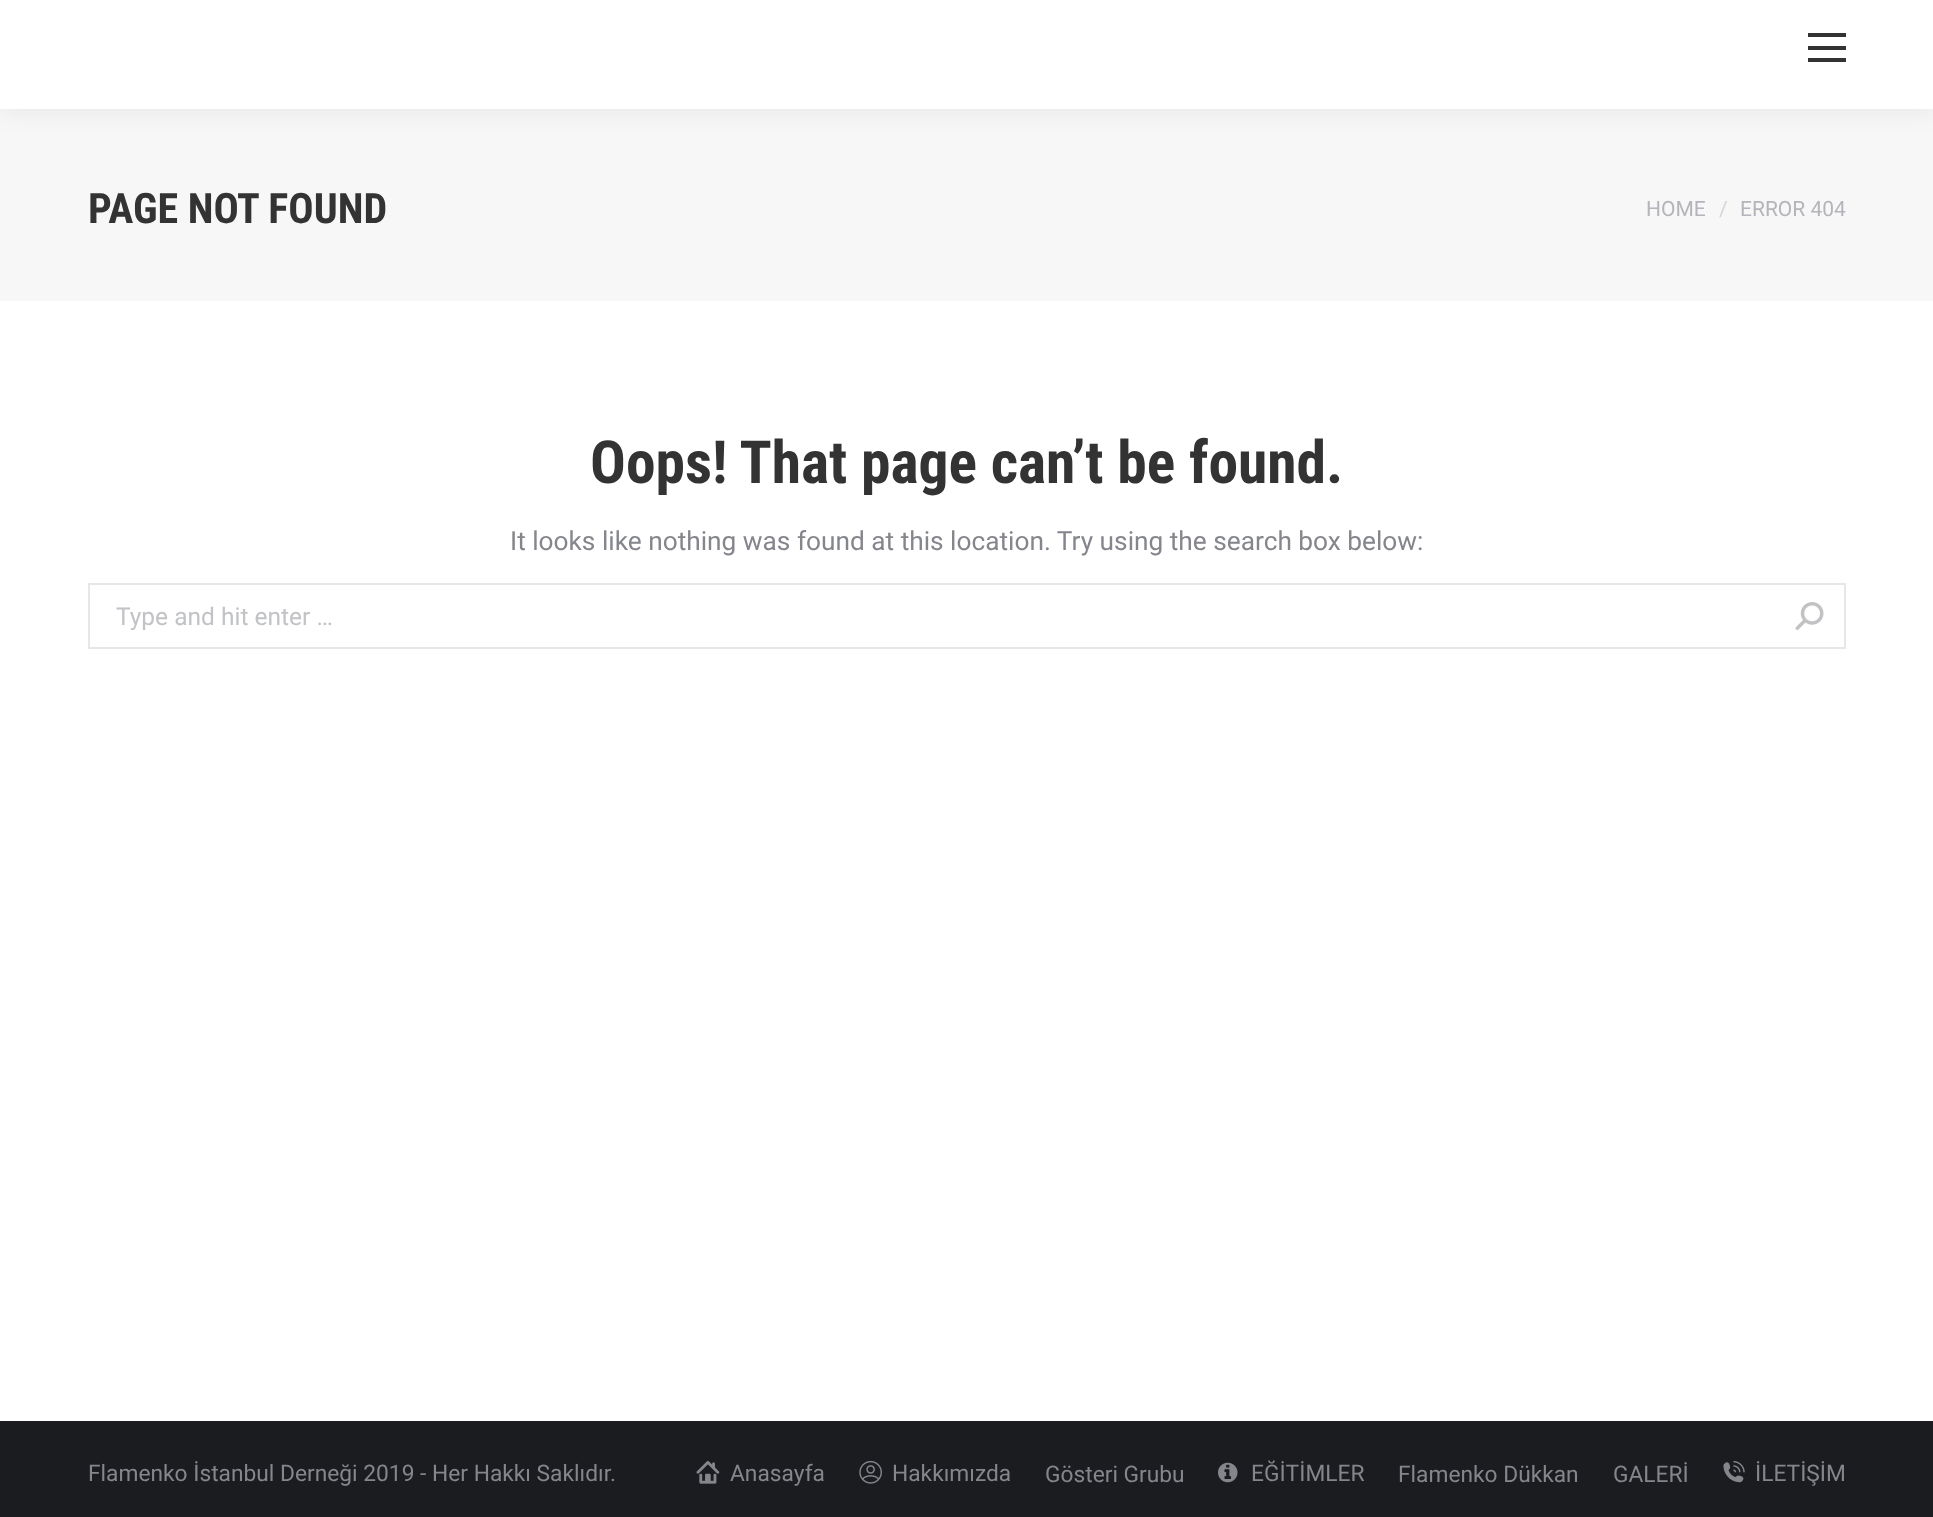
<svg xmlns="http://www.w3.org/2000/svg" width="1933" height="1517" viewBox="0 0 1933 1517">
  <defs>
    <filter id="blur1" x="-50%" y="-200%" width="200%" height="500%"><feGaussianBlur stdDeviation="13"/></filter>
    <clipPath id="clip1"><rect x="116" y="602" width="1676" height="28"/></clipPath>
  </defs>
  <rect width="100%" height="100%" fill="#ffffff"/>
  <rect x="0" y="109" width="1933" height="192" fill="#f7f7f7"/>
  <rect x="-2" y="-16" width="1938" height="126" fill="#000000" fill-opacity="0.07" filter="url(#blur1)"/>
  <rect x="0" y="0" width="1933" height="109" fill="#ffffff"/>
  <rect x="1808" y="46" width="38" height="4" fill="#333333"/>
  <rect x="1808" y="33" width="38" height="4" fill="#333333"/>
  <rect x="1808" y="58" width="38" height="4" fill="#333333"/>
  <text x="88" y="223" font-family="Roboto Condensed" font-size="42" font-weight="bold" fill="#333333">PAGE NOT FOUND</text>
  <text x="1646" y="216" font-family="Roboto" font-size="21" fill="#b4b5bb">HOME</text>
  <text x="1719" y="216" font-family="Roboto" font-size="21" fill="#d6d6d9">/</text>
  <text x="1740" y="216" font-family="Roboto" font-size="21" fill="#b4b5bb">ERROR 404</text>
  <text x="590" y="483" font-family="Roboto Condensed" font-size="59.5" font-weight="bold" fill="#333333">Oops! That page can’t be found.</text>
  <text x="510" y="550" font-family="Roboto" font-size="26.25" fill="#85868c">It looks like nothing was found at this location. Try using the search box below:</text>
  <rect x="89" y="584" width="1756" height="64" fill="none" stroke="#e7e7e7" stroke-width="2"/>
  <g clip-path="url(#clip1)">
    <text x="116" y="625" font-family="Roboto" font-size="24.5" fill="#c2c3c6">Type and hit enter …</text>
  </g>
  <image x="1795" y="602" width="29" height="28" href="img1.png"/>
  <rect x="0" y="1421" width="1933" height="96" fill="#1a1c20"/>
  <text x="88" y="1481" font-family="Roboto" font-size="22.75" fill="#85868c">Flamenko İstanbul Derneği 2019 - Her Hakkı Saklıdır.</text>
  <image x="696" y="1461" width="24" height="23" href="img2.png"/>
  <text x="730" y="1481" font-family="Roboto" font-size="22.75" fill="#85868c">Anasayfa</text>
  <image x="859" y="1460" width="23" height="24" href="img3.png"/>
  <text x="892" y="1481" font-family="Roboto" font-size="22.75" fill="#85868c">Hakkımızda</text>
  <text x="1045" y="1482" font-family="Roboto" font-size="22.75" fill="#85868c">Gösteri Grubu</text>
  <image x="1218" y="1462" width="20" height="21" href="img4.png"/>
  <text x="1251" y="1481" font-family="Roboto" font-size="22.75" fill="#85868c">EĞİTİMLER</text>
  <text x="1398" y="1482" font-family="Roboto" font-size="22.75" fill="#85868c">Flamenko Dükkan</text>
  <text x="1613" y="1482" font-family="Roboto" font-size="22.75" fill="#85868c">GALERİ</text>
  <image x="1723" y="1461" width="22" height="22" href="img5.png"/>
  <text x="1755" y="1481" font-family="Roboto" font-size="22.75" fill="#85868c">İLETİŞİM</text>
</svg>
